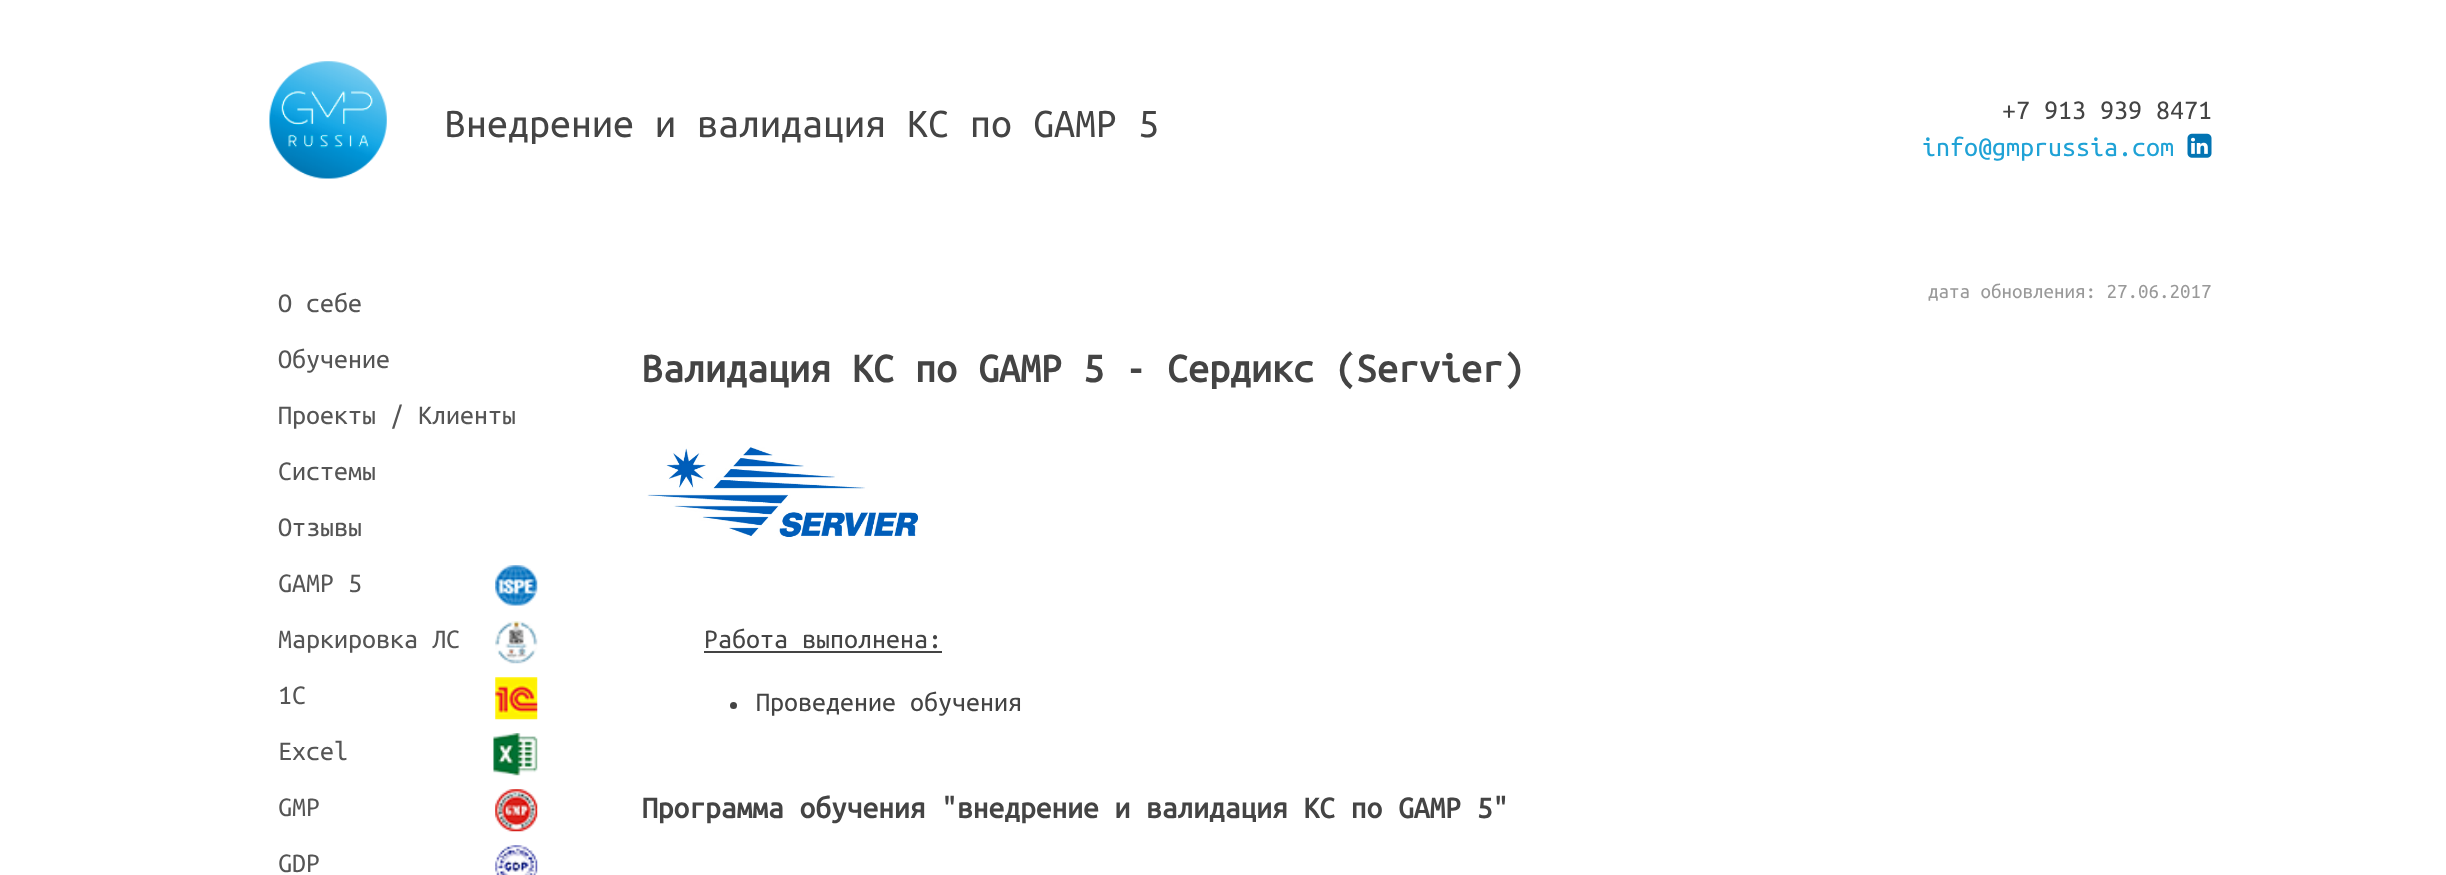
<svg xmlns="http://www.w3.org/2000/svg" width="2446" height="875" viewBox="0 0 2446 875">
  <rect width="100%" height="100%" fill="#ffffff"/>
  <image x="269" y="61" width="118" height="118" href="img1.png"/>
  <text x="445" y="137" font-family="Ubuntu Mono" font-size="42" fill="#444444">Внедрение и валидация КС по GAMP 5</text>
  <text x="2002" y="119" font-family="Ubuntu Mono" font-size="28" fill="#444444">+7 913 939 8471</text>
  <text x="1922" y="156" font-family="Ubuntu Mono" font-size="28" fill="#1fa2d6">info@gmprussia.com</text>
  <image x="2187" y="133" width="25" height="25" href="img2.png"/>
  <text x="278" y="312" font-family="Ubuntu Mono" font-size="28" fill="#555555">О себе</text>
  <text x="278" y="368" font-family="Ubuntu Mono" font-size="28" fill="#555555">Обучение</text>
  <text x="278" y="424" font-family="Ubuntu Mono" font-size="28" fill="#555555">Проекты / Клиенты</text>
  <text x="278" y="480" font-family="Ubuntu Mono" font-size="28" fill="#555555">Системы</text>
  <text x="278" y="536" font-family="Ubuntu Mono" font-size="28" fill="#555555">Отзывы</text>
  <text x="278" y="592" font-family="Ubuntu Mono" font-size="28" fill="#555555">GAMP 5</text>
  <image x="495" y="565" width="43" height="41" href="img3.png"/>
  <text x="278" y="648" font-family="Ubuntu Mono" font-size="28" fill="#555555">Маркировка ЛС</text>
  <image x="495" y="621" width="43" height="43" href="img4.png"/>
  <text x="278" y="704" font-family="Ubuntu Mono" font-size="28" fill="#555555">1C</text>
  <image x="495" y="677" width="43" height="43" href="img5.png"/>
  <text x="278" y="760" font-family="Ubuntu Mono" font-size="28" fill="#555555">Excel</text>
  <image x="493" y="733" width="45" height="43" href="img6.png"/>
  <text x="278" y="816" font-family="Ubuntu Mono" font-size="28" fill="#555555">GMP</text>
  <image x="495" y="789" width="43" height="43" href="img7.png"/>
  <text x="278" y="872" font-family="Ubuntu Mono" font-size="28" fill="#555555">GDP</text>
  <image x="495" y="845" width="43" height="30" href="img8.png"/>
  <text x="1928" y="298" font-family="Ubuntu Mono" font-size="21" fill="#999999">дата обновления: 27.06.2017</text>
  <text x="642" y="382" font-family="Ubuntu Mono" font-size="42" font-weight="bold" fill="#444444">Валидация КС по GAMP 5 - Сердикс (Servier)</text>
  <image x="647" y="447" width="271" height="90" href="img9.png"/>
  <text x="704" y="648" font-family="Ubuntu Mono" font-size="28" fill="#444444">Работа выполнена:</text>
  <rect x="704" y="651" width="238" height="2" fill="#444444"/>
  <circle cx="733.5" cy="705.5" r="3.5" fill="#444444"/>
  <text x="756" y="711" font-family="Ubuntu Mono" font-size="28" fill="#444444">Проведение обучения</text>
  <text x="642" y="818" font-family="Ubuntu Mono" font-size="31.5" font-weight="bold" fill="#444444">Программа обучения "внедрение и валидация КС по GAMP 5"</text>
</svg>
